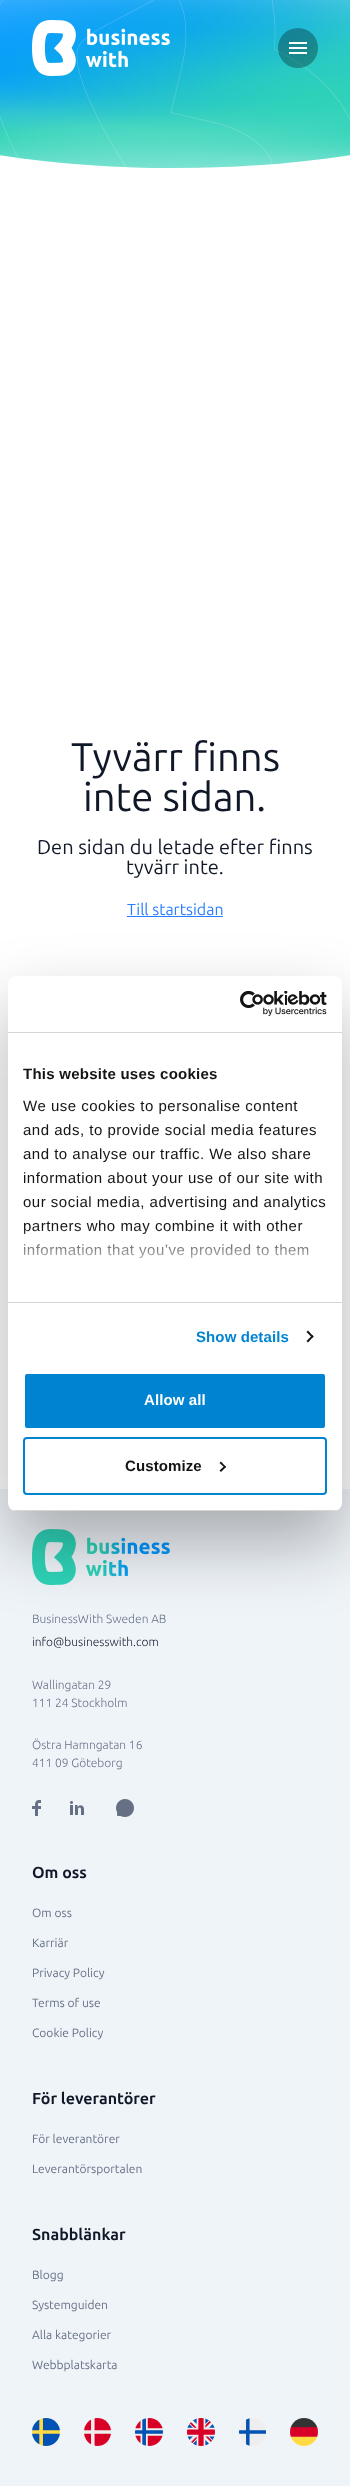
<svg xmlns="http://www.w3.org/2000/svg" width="350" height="2486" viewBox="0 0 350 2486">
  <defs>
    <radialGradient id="g1" gradientUnits="userSpaceOnUse" cx="0" cy="0" r="1" gradientTransform="matrix(660 0 0 193 187 32)"><stop offset="0" stop-color="#0099ff"/><stop offset="0.5" stop-color="#ffffff"/></radialGradient>
    <radialGradient id="g2" gradientUnits="userSpaceOnUse" cx="0" cy="0" r="1" gradientTransform="matrix(862 0 0 140 20 69)"><stop offset="0" stop-color="#0099ff"/><stop offset="0.5" stop-color="#0099ff" stop-opacity="0"/></radialGradient>
    <radialGradient id="g3" gradientUnits="userSpaceOnUse" cx="0" cy="0" r="1" gradientTransform="matrix(772 0 0 165 266 51)"><stop offset="0" stop-color="#0099ff"/><stop offset="0.5" stop-color="#0099ff" stop-opacity="0"/></radialGradient>
    <radialGradient id="g4" gradientUnits="userSpaceOnUse" cx="0" cy="0" r="1" gradientTransform="matrix(947 0 0 189 -40 134)"><stop offset="0" stop-color="#2dd2b7"/><stop offset="0.5" stop-color="#2dd2b7" stop-opacity="0"/></radialGradient>
    <radialGradient id="g5" gradientUnits="userSpaceOnUse" cx="0" cy="0" r="1" gradientTransform="matrix(991 0 0 186 421 131)"><stop offset="0" stop-color="#2dd2b7"/><stop offset="0.5" stop-color="#2dd2b7" stop-opacity="0"/></radialGradient>
    <radialGradient id="g6" gradientUnits="userSpaceOnUse" cx="0" cy="0" r="1" gradientTransform="matrix(830 0 0 131 307 93)"><stop offset="0" stop-color="#2dd2b7"/><stop offset="0.5" stop-color="#2dd2b7" stop-opacity="0"/></radialGradient>
    <radialGradient id="g7" gradientUnits="userSpaceOnUse" cx="0" cy="0" r="1" gradientTransform="matrix(1290 0 0 132 -282 74)"><stop offset="0" stop-color="#0099ff"/><stop offset="0.5" stop-color="#0099ff" stop-opacity="0"/></radialGradient>
    <radialGradient id="g8" gradientUnits="userSpaceOnUse" cx="0" cy="0" r="1" gradientTransform="matrix(1104 0 0 184 501 38)"><stop offset="0" stop-color="#2ed3b7"/><stop offset="0.5" stop-color="#2ed3b7" stop-opacity="0"/></radialGradient>
    <radialGradient id="g9" gradientUnits="userSpaceOnUse" cx="0" cy="0" r="1" gradientTransform="matrix(1167 0 0 231 -195 4.4)"><stop offset="0" stop-color="#0097ff"/><stop offset="0.5" stop-color="#0097ff" stop-opacity="0"/></radialGradient>
    <filter id="blur1" x="-50%" y="-200%" width="200%" height="500%"><feGaussianBlur stdDeviation="34"/></filter>
    <linearGradient id="g10" gradientUnits="userSpaceOnUse" x1="169" y1="1302" x2="169" y2="1227"><stop offset="0" stop-color="#ffffff"/><stop offset="0.5" stop-color="#ffffff" stop-opacity="0.8"/><stop offset="1" stop-color="#ffffff" stop-opacity="0"/></linearGradient>
    <clipPath id="clip1"><rect x="8" y="976" width="334" height="535" rx="8"/></clipPath>
  </defs>
  <rect width="100%" height="100%" fill="#ffffff"/>
  <path d="M-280 0H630C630 93 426 168 175 168C-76 168-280 93-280 0Z" fill="url(#g1)"/>
  <path d="M-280 0H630C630 93 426 168 175 168C-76 168-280 93-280 0Z" fill="url(#g2)"/>
  <path d="M-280 0H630C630 93 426 168 175 168C-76 168-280 93-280 0Z" fill="url(#g3)"/>
  <path d="M-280 0H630C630 93 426 168 175 168C-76 168-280 93-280 0Z" fill="url(#g4)"/>
  <path d="M-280 0H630C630 93 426 168 175 168C-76 168-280 93-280 0Z" fill="url(#g5)"/>
  <path d="M-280 0H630C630 93 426 168 175 168C-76 168-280 93-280 0Z" fill="url(#g6)"/>
  <path d="M-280 0H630C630 93 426 168 175 168C-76 168-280 93-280 0Z" fill="url(#g7)"/>
  <path d="M-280 0H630C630 93 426 168 175 168C-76 168-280 93-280 0Z" fill="url(#g8)"/>
  <path d="M-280 0H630C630 93 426 168 175 168C-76 168-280 93-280 0Z" fill="url(#g9)"/>
  <image x="0" y="0" width="350" height="167" href="img1.png"/>
  <image x="32" y="20" width="138" height="56" href="img2.png"/>
  <circle cx="298" cy="48" r="20" fill="#000000" fill-opacity="0.3"/>
  <image x="289" y="42" width="18" height="12" href="img3.png"/>
  <text x="71" y="771" font-family="Ubuntu" font-size="40" fill="#101828">Tyvärr finns</text>
  <text x="83" y="811" font-family="Ubuntu" font-size="40" fill="#101828">inte sidan.</text>
  <text x="37" y="854" font-family="Ubuntu" font-size="20" fill="#101828">Den sidan du letade efter finns</text>
  <text x="126" y="874" font-family="Ubuntu" font-size="20" fill="#101828">tyvärr inte.</text>
  <text x="127" y="915" font-family="Ubuntu" font-size="16" fill="#297fff">Till startsidan</text>
  <rect x="127" y="916" width="96" height="1" fill="#297fff"/>
  <rect x="0" y="1489" width="350" height="997" fill="#eff4f9"/>
  <image x="32" y="1529" width="138" height="56" href="img4.png"/>
  <text x="32" y="1623" font-family="Ubuntu" font-size="12" font-weight="300" fill="#667085">BusinessWith Sweden AB</text>
  <text x="32" y="1646" font-family="Ubuntu" font-size="12" font-weight="300" fill="#101828">info@businesswith.com</text>
  <text x="32" y="1689" font-family="Ubuntu" font-size="12" font-weight="300" fill="#667085">Wallingatan 29</text>
  <text x="32" y="1707" font-family="Ubuntu" font-size="12" font-weight="300" fill="#667085">111 24 Stockholm</text>
  <text x="32" y="1749" font-family="Ubuntu" font-size="12" font-weight="300" fill="#667085">Östra Hamngatan 16</text>
  <text x="32" y="1767" font-family="Ubuntu" font-size="12" font-weight="300" fill="#667085">411 09 Göteborg</text>
  <image x="32" y="1800" width="9" height="16" href="img5.png"/>
  <image x="70" y="1801" width="14" height="14" href="img6.png"/>
  <image x="116" y="1799" width="18" height="18" href="img7.png"/>
  <text x="32" y="1878" font-family="Ubuntu" font-size="16" font-weight="bold" fill="#101828">Om oss</text>
  <text x="32" y="1917" font-family="Ubuntu" font-size="12" fill="#667085">Om oss</text>
  <text x="32" y="1947" font-family="Ubuntu" font-size="12" fill="#667085">Karriär</text>
  <text x="32" y="1977" font-family="Ubuntu" font-size="12" fill="#667085">Privacy Policy</text>
  <text x="32" y="2007" font-family="Ubuntu" font-size="12" fill="#667085">Terms of use</text>
  <text x="32" y="2037" font-family="Ubuntu" font-size="12" fill="#667085">Cookie Policy</text>
  <text x="32" y="2104" font-family="Ubuntu" font-size="16" font-weight="bold" fill="#101828">För leverantörer</text>
  <text x="32" y="2143" font-family="Ubuntu" font-size="12" fill="#667085">För leverantörer</text>
  <text x="32" y="2173" font-family="Ubuntu" font-size="12" fill="#667085">Leverantörsportalen</text>
  <text x="32" y="2240" font-family="Ubuntu" font-size="16" font-weight="bold" fill="#101828">Snabblänkar</text>
  <text x="32" y="2279" font-family="Ubuntu" font-size="12" fill="#667085">Blogg</text>
  <text x="32" y="2309" font-family="Ubuntu" font-size="12" fill="#667085">Systemguiden</text>
  <text x="32" y="2339" font-family="Ubuntu" font-size="12" fill="#667085">Alla kategorier</text>
  <text x="32" y="2369" font-family="Ubuntu" font-size="12" fill="#667085">Webbplatskarta</text>
  <image x="32" y="2418" width="28" height="28" href="img8.png"/>
  <image x="84" y="2418" width="27" height="28" href="img9.png"/>
  <image x="135" y="2418" width="28" height="28" href="img10.png"/>
  <image x="187" y="2418" width="28" height="28" href="img11.png"/>
  <image x="239" y="2418" width="27" height="28" href="img12.png"/>
  <image x="290" y="2418" width="28" height="28" href="img13.png"/>
  <rect x="8" y="1008" width="334" height="535" rx="8" fill="#000000" fill-opacity="0.3" filter="url(#blur1)"/>
  <rect x="8" y="976" width="334" height="535" rx="8" fill="#ffffff"/>
  <rect x="8" y="1032" width="334" height="1" fill="#d6d6d6"/>
  <image x="240" y="991" width="87" height="25" href="img14.png"/>
  <rect x="8" y="1302" width="334" height="1" fill="#d6d6d6"/>
  <text x="23" y="1079" font-family="Liberation Sans" font-size="15" font-weight="bold" letter-spacing="0.25" fill="#141414">This website uses cookies</text>
  <text x="23" y="1111" font-family="Liberation Sans" font-size="15" letter-spacing="0.5" fill="#141414">We use cookies to personalise content</text>
  <text x="23" y="1135" font-family="Liberation Sans" font-size="15" letter-spacing="0.5" fill="#141414">and ads, to provide social media features</text>
  <text x="23" y="1159" font-family="Liberation Sans" font-size="15" letter-spacing="0.5" fill="#141414">and to analyse our traffic. We also share</text>
  <text x="23" y="1183" font-family="Liberation Sans" font-size="15" letter-spacing="0.5" fill="#141414">information about your use of our site with</text>
  <text x="23" y="1207" font-family="Liberation Sans" font-size="15" letter-spacing="0.5" fill="#141414">our social media, advertising and analytics</text>
  <text x="23" y="1231" font-family="Liberation Sans" font-size="15" letter-spacing="0.5" fill="#141414">partners who may combine it with other</text>
  <text x="23" y="1255" font-family="Liberation Sans" font-size="15" letter-spacing="0.5" fill="#141414">information that you’ve provided to them</text>
  <rect x="24" y="1228" width="285" height="31" fill="url(#g10)"/>
  <text x="196" y="1342" font-family="Liberation Sans" font-size="15" font-weight="bold" letter-spacing="0.1" fill="#0084d2">Show details</text>
  <path d="M308 1330.5L313.5 1336.5L312.5 1338L306.5 1332Z" fill="#141414"/>
  <path d="M312.5 1335L313.5 1336.5L308 1342.5L306.5 1341Z" fill="#141414"/>
  <g clip-path="url(#clip1)">
    <rect x="8" y="1510" width="334" height="1" fill="#d6d6d6"/>
  </g>
  <rect x="24" y="1373" width="302" height="56" rx="3" fill="#0084d2" stroke="#ffffff" stroke-width="2"/>
  <text x="144" y="1405" font-family="Liberation Sans" font-size="15" font-weight="bold" letter-spacing="0.1" fill="#ffffff">Allow all</text>
  <rect x="24" y="1438" width="302" height="56" rx="3" fill="none" stroke="#0084d2" stroke-width="2"/>
  <text x="125" y="1471" font-family="Liberation Sans" font-size="15" font-weight="bold" letter-spacing="0.1" fill="#141414">Customize</text>
  <path d="M221 1461.5L226 1467L225 1468L219.5 1463Z" fill="#141414"/>
  <path d="M225 1465.5L226 1467L221 1472L219.5 1470.5Z" fill="#141414"/>
</svg>
